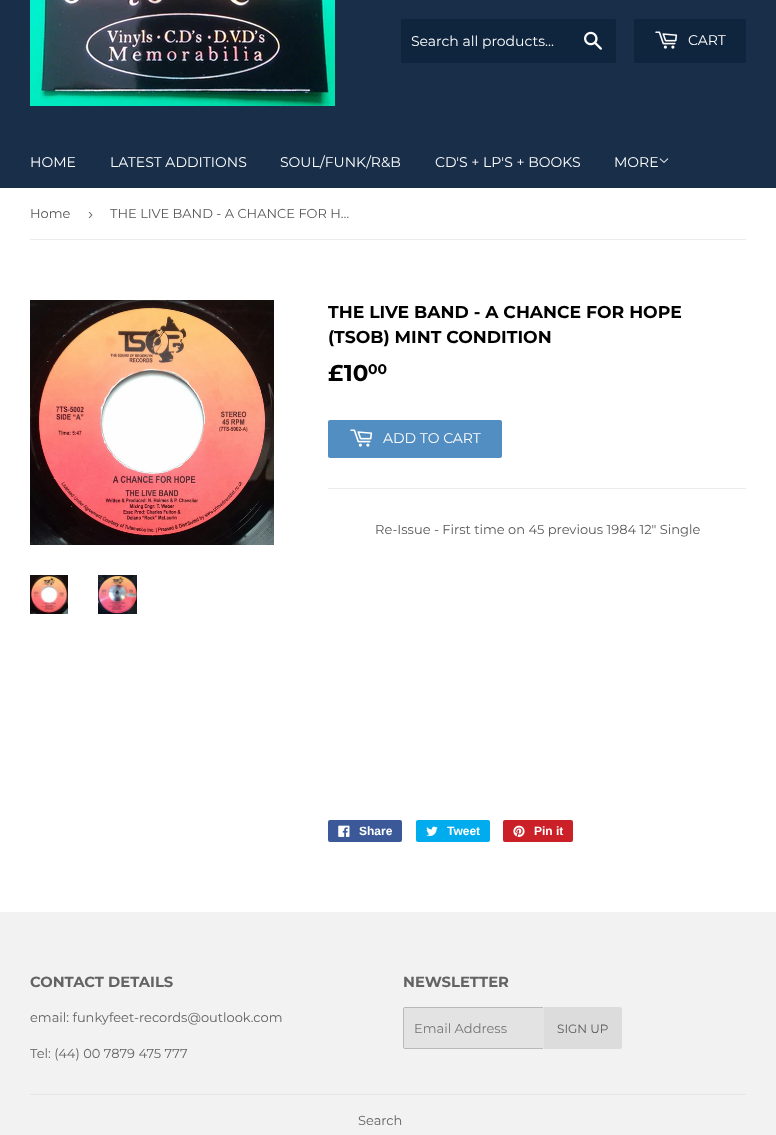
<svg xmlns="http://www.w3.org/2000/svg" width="776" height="1135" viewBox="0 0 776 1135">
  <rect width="100%" height="100%" fill="#ffffff"/>
  <rect x="0" y="0" width="776" height="188" fill="#182e49"/>
  <image x="30" y="0" width="305" height="106" href="img1.png"/>
  <rect x="401" y="19" width="215" height="44" rx="2" fill="#0f243d"/>
  <text x="411" y="46" font-family="Montserrat" font-size="14" fill="#ffffff">Search all products...</text>
  <image x="584" y="31" width="18" height="19" href="img2.png"/>
  <rect x="634" y="19" width="112" height="44" rx="2" fill="#0f243d"/>
  <image x="655" y="31" width="23" height="18" href="img3.png"/>
  <text x="688" y="45" font-family="Montserrat" font-size="14" fill="#ffffff">CART</text>
  <text x="30" y="167" font-family="Montserrat" font-size="14" fill="#ffffff">HOME</text>
  <text x="110" y="167" font-family="Montserrat" font-size="14" fill="#ffffff">LATEST ADDITIONS</text>
  <text x="280" y="167" font-family="Montserrat" font-size="14" fill="#ffffff">SOUL/FUNK/R&amp;B</text>
  <text x="435" y="167" font-family="Montserrat" font-size="14" fill="#ffffff">CD'S + LP'S + BOOKS</text>
  <text x="614" y="167" font-family="Montserrat" font-size="14" fill="#ffffff">MORE</text>
  <image x="659" y="158" width="10" height="5" href="img4.png"/>
  <rect x="30" y="239" width="716" height="1" fill="#ececec"/>
  <text x="30" y="218" font-family="Montserrat" font-size="13" fill="#585858">Home</text>
  <text x="88" y="219" font-family="Liberation Sans" font-size="15" fill="#767676">›</text>
  <text x="110" y="218" font-family="Montserrat" font-size="13" fill="#585858">THE LIVE BAND - A CHANCE FOR H…</text>
  <image x="30" y="300" width="244" height="245" href="img5.png"/>
  <image x="30" y="575" width="38" height="39" href="img6.png"/>
  <image x="98" y="575" width="39" height="39" href="img7.png"/>
  <text x="328" y="318" font-family="Montserrat" font-size="17.3" font-weight="bold" fill="#000000">THE LIVE BAND - A CHANCE FOR HOPE</text>
  <text x="328" y="343" font-family="Montserrat" font-size="17.3" font-weight="bold" fill="#000000">(TSOB) MINT CONDITION</text>
  <text x="328" y="381" font-family="Montserrat" font-size="23" font-weight="bold" fill="#000000">£10</text>
  <text x="368" y="374" font-family="Montserrat" font-size="14" font-weight="bold" fill="#000000">00</text>
  <rect x="328" y="420" width="174" height="38" rx="2" fill="#528ec1"/>
  <image x="350" y="429" width="23" height="18" href="img8.png"/>
  <text x="383" y="443" font-family="Montserrat" font-size="14" fill="#ffffff">ADD TO CART</text>
  <rect x="328" y="488" width="418" height="1" fill="#ececec"/>
  <text x="375" y="534" font-family="Montserrat" font-size="13" fill="#585858">Re-Issue - First time on 45 previous 1984 12" Single</text>
  <rect x="328" y="820" width="74" height="22" rx="2" fill="#3b5998"/>
  <image x="338" y="825" width="12" height="12" href="img9.png"/>
  <text x="359" y="835" font-family="Liberation Sans" font-size="12" font-weight="bold" fill="#ffffff">Share</text>
  <rect x="416" y="820" width="74" height="22" rx="2" fill="#00aced"/>
  <image x="426" y="826" width="12" height="10" href="img10.png"/>
  <text x="447" y="835" font-family="Liberation Sans" font-size="12" font-weight="bold" fill="#ffffff">Tweet</text>
  <rect x="503" y="820" width="70" height="22" rx="2" fill="#cb2027"/>
  <image x="513" y="825" width="12" height="12" href="img11.png"/>
  <text x="534" y="835" font-family="Liberation Sans" font-size="12" font-weight="bold" fill="#ffffff">Pin it</text>
  <rect x="0" y="912" width="776" height="223" fill="#f2f2f2"/>
  <text x="30" y="987" font-family="Montserrat" font-size="14.75" font-weight="bold" fill="#636363">CONTACT DETAILS</text>
  <text x="30" y="1022" font-family="Montserrat" font-size="13" fill="#636363">email: funkyfeet-records@outlook.com</text>
  <text x="30" y="1058" font-family="Montserrat" font-size="13" fill="#636363">Tel: (44) 00 7879 475 777</text>
  <text x="403" y="987" font-family="Montserrat" font-size="14.75" font-weight="bold" fill="#636363">NEWSLETTER</text>
  <rect x="403" y="1007" width="141" height="42" rx="2" fill="#e3e3e3"/>
  <rect x="404" y="1007" width="139" height="1" fill="#b9b9b9"/>
  <rect x="404" y="1048" width="139" height="1" fill="#b9b9b9"/>
  <rect x="403" y="1008" width="1" height="40" fill="#b9b9b9"/>
  <text x="414" y="1033" font-family="Montserrat" font-size="13" fill="#767676">Email Address</text>
  <path d="M544 1007H620C621 1007 622 1008 622 1009V1047C622 1048 621 1049 620 1049H544Z" fill="#dcdcdc"/>
  <text x="557" y="1033" font-family="Montserrat" font-size="12" fill="#585858">SIGN UP</text>
  <rect x="30" y="1094" width="716" height="1" fill="#e5e5e5"/>
  <text x="358" y="1125" font-family="Montserrat" font-size="13" fill="#636363">Search</text>
</svg>
